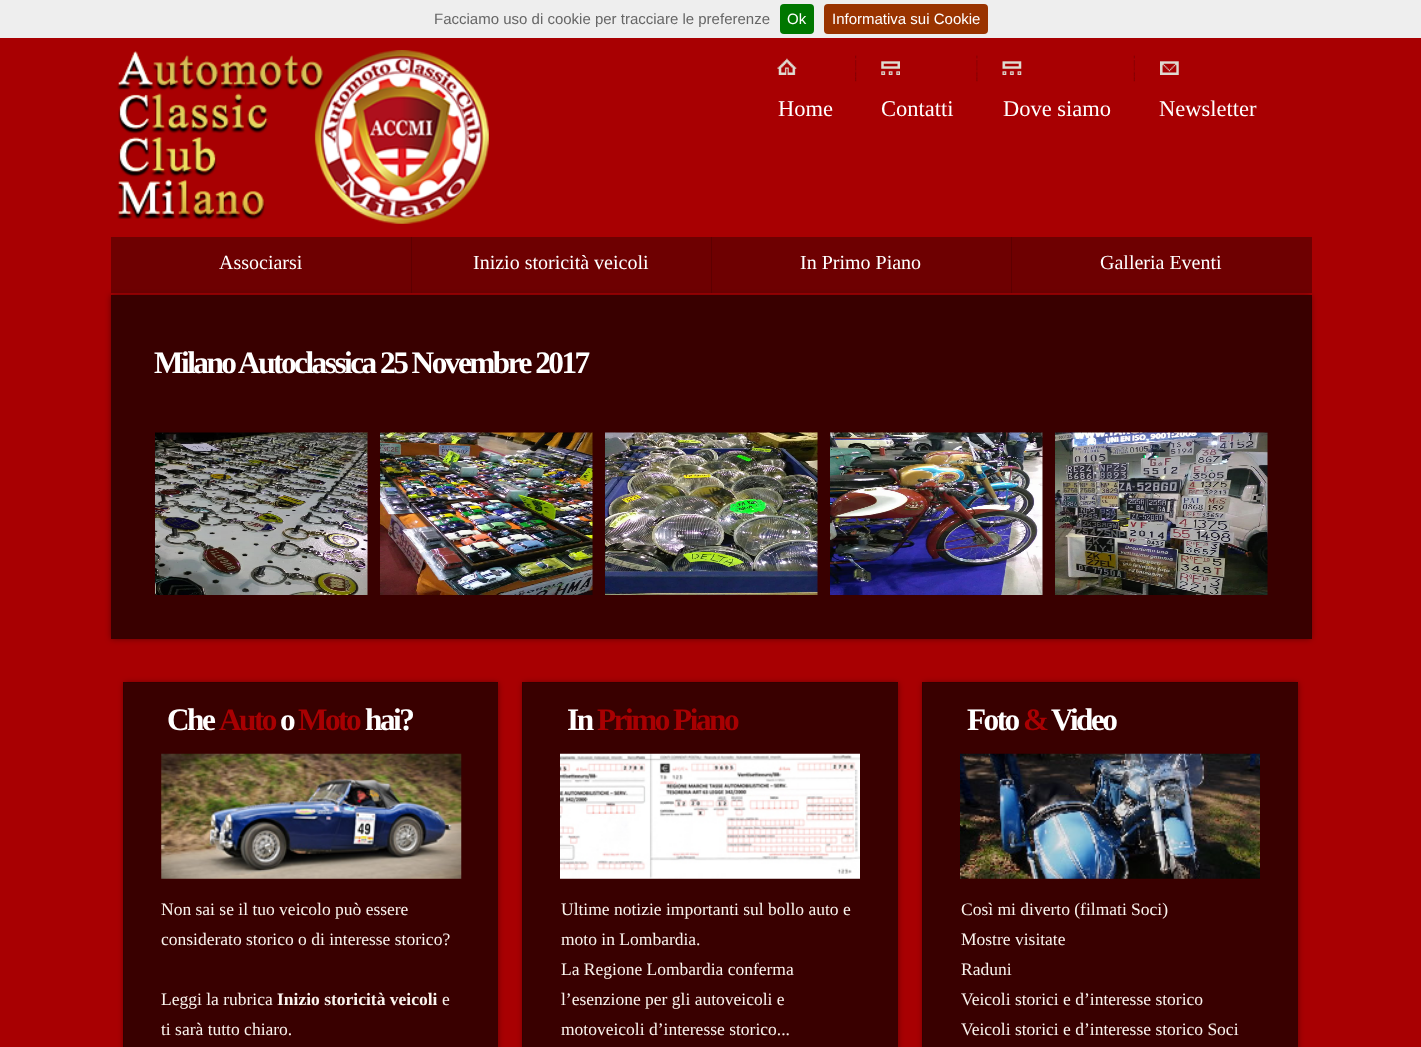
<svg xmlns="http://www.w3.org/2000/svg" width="1421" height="1047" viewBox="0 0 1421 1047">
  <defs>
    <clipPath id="clip1"><path d="M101 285H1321V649H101ZM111 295H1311V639H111Z" clip-rule="evenodd"/></clipPath>
    <filter id="blur1" x="-50%" y="-200%" width="200%" height="500%"><feGaussianBlur stdDeviation="3"/></filter>
    <clipPath id="clip2"><path d="M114 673H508V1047H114ZM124 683H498V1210H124Z" clip-rule="evenodd"/></clipPath>
    <clipPath id="clip3"><path d="M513 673H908V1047H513ZM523 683H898V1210H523Z" clip-rule="evenodd"/></clipPath>
    <clipPath id="clip4"><path d="M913 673H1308V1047H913ZM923 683H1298V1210H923Z" clip-rule="evenodd"/></clipPath>
  </defs>
  <rect width="100%" height="100%" fill="#a80002"/>
  <rect x="0" y="0" width="1421" height="38" fill="#eeeeee"/>
  <text x="434" y="24" font-family="Liberation Sans" font-size="15" fill="#666666">Facciamo uso di cookie per tracciare le preferenze</text>
  <rect x="780" y="4" width="34" height="30" rx="4" fill="#007700"/>
  <text x="787" y="24" font-family="Liberation Sans" font-size="15" fill="#ffffff">Ok</text>
  <rect x="824" y="4" width="164" height="30" rx="4" fill="#993300"/>
  <text x="832" y="24" font-family="Liberation Sans" font-size="15" fill="#ffffff">Informativa sui Cookie</text>
  <image x="117" y="50" width="372" height="174" href="img1.png"/>
  <image x="855" y="55" width="2" height="27" href="img2.png"/>
  <image x="777" y="58" width="20" height="17" href="img3.png"/>
  <text x="778" y="116" font-family="Liberation Serif" font-size="22.5" fill="#ffffff">Home</text>
  <image x="976" y="55" width="2" height="27" href="img4.png"/>
  <image x="881" y="61" width="19" height="14" href="img5.png"/>
  <text x="881" y="116" font-family="Liberation Serif" font-size="22.5" fill="#ffffff">Contatti</text>
  <image x="1133" y="55" width="2" height="27" href="img6.png"/>
  <image x="1002" y="61" width="20" height="14" href="img7.png"/>
  <text x="1003" y="116" font-family="Liberation Serif" font-size="22.5" fill="#ffffff">Dove siamo</text>
  <image x="1160" y="61" width="19" height="14" href="img8.png"/>
  <text x="1159" y="116" font-family="Liberation Serif" font-size="22.5" fill="#ffffff">Newsletter</text>
  <g clip-path="url(#clip1)">
    <rect x="111" y="295" width="1200" height="344" fill="#000000" fill-opacity="0.4" filter="url(#blur1)"/>
  </g>
  <rect x="111" y="237" width="301" height="56" fill="#550001" fill-opacity="0.7"/>
  <text x="219" y="269" font-family="Liberation Serif" font-size="20" fill="#ffffff">Associarsi</text>
  <rect x="411" y="237" width="301" height="56" fill="#550001" fill-opacity="0.7"/>
  <text x="473" y="269" font-family="Liberation Serif" font-size="20" fill="#ffffff">Inizio storicità veicoli</text>
  <rect x="711" y="237" width="301" height="56" fill="#550001" fill-opacity="0.7"/>
  <text x="800" y="269" font-family="Liberation Serif" font-size="20" fill="#ffffff">In Primo Piano</text>
  <rect x="1011" y="237" width="301" height="56" fill="#550001" fill-opacity="0.7"/>
  <text x="1100" y="269" font-family="Liberation Serif" font-size="20" fill="#ffffff">Galleria Eventi</text>
  <rect x="111" y="295" width="1201" height="344" fill="#1d0000" fill-opacity="0.8"/>
  <text x="154" y="373" font-family="Liberation Serif" font-size="31.25" font-weight="bold" letter-spacing="-2.5" fill="#ffffff">Milano Autoclassica 25 Novembre 2017</text>
  <image x="155" y="432" width="213" height="163" href="img9.png"/>
  <image x="380" y="432" width="213" height="163" href="img10.png"/>
  <image x="605" y="432" width="213" height="163" href="img11.png"/>
  <image x="830" y="432" width="213" height="163" href="img12.png"/>
  <image x="1055" y="432" width="213" height="163" href="img13.png"/>
  <g clip-path="url(#clip2)">
    <rect x="124" y="683" width="374" height="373" fill="#000000" fill-opacity="0.4" filter="url(#blur1)"/>
  </g>
  <rect x="123" y="682" width="375" height="365" fill="#1d0000" fill-opacity="0.8"/>
  <text x="167" y="730" font-family="Liberation Serif" font-size="31.25" font-weight="bold" letter-spacing="-2.5" fill="#ffffff">Che</text>
  <text x="219" y="730" font-family="Liberation Serif" font-size="31.25" font-weight="bold" letter-spacing="-2.5" fill="#a80002">Auto</text>
  <text x="280" y="730" font-family="Liberation Serif" font-size="31.25" font-weight="bold" letter-spacing="-2.5" fill="#ffffff">o</text>
  <text x="298" y="730" font-family="Liberation Serif" font-size="31.25" font-weight="bold" letter-spacing="-2.5" fill="#a80002">Moto</text>
  <text x="365" y="730" font-family="Liberation Serif" font-size="31.25" font-weight="bold" letter-spacing="-2.5" fill="#ffffff">hai?</text>
  <image x="161" y="753" width="301" height="126" href="img14.png"/>
  <text x="161" y="915" font-family="Liberation Serif" font-size="17.5" fill="#faf3ed">Non sai se il tuo veicolo può essere</text>
  <text x="161" y="945" font-family="Liberation Serif" font-size="17.5" fill="#faf3ed">considerato storico o di interesse storico?</text>
  <text x="161" y="1005" font-family="Liberation Serif" font-size="17.5" fill="#faf3ed">Leggi la rubrica</text>
  <text x="277" y="1005" font-family="Liberation Serif" font-size="17.5" font-weight="bold" fill="#faf3ed">Inizio storicità veicoli</text>
  <text x="442" y="1005" font-family="Liberation Serif" font-size="17.5" fill="#faf3ed">e</text>
  <text x="161" y="1035" font-family="Liberation Serif" font-size="17.5" fill="#faf3ed">ti sarà tutto chiaro.</text>
  <g clip-path="url(#clip3)">
    <rect x="523" y="683" width="375" height="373" fill="#000000" fill-opacity="0.4" filter="url(#blur1)"/>
  </g>
  <rect x="522" y="682" width="376" height="365" fill="#1d0000" fill-opacity="0.8"/>
  <text x="567" y="730" font-family="Liberation Serif" font-size="31.25" font-weight="bold" letter-spacing="-2.5" fill="#ffffff">In</text>
  <text x="597" y="730" font-family="Liberation Serif" font-size="31.25" font-weight="bold" letter-spacing="-2.5" fill="#a80002">Primo Piano</text>
  <image x="560" y="753" width="300" height="126" href="img15.png"/>
  <text x="561" y="915" font-family="Liberation Serif" font-size="17.5" fill="#faf3ed">Ultime notizie importanti sul bollo auto e</text>
  <text x="561" y="945" font-family="Liberation Serif" font-size="17.5" fill="#faf3ed">moto in Lombardia.</text>
  <text x="561" y="975" font-family="Liberation Serif" font-size="17.5" fill="#faf3ed">La Regione Lombardia conferma</text>
  <text x="561" y="1005" font-family="Liberation Serif" font-size="17.5" fill="#faf3ed">l’esenzione per gli autoveicoli e</text>
  <text x="561" y="1035" font-family="Liberation Serif" font-size="17.5" fill="#faf3ed">motoveicoli d’interesse storico...</text>
  <g clip-path="url(#clip4)">
    <rect x="923" y="683" width="375" height="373" fill="#000000" fill-opacity="0.4" filter="url(#blur1)"/>
  </g>
  <rect x="922" y="682" width="376" height="365" fill="#1d0000" fill-opacity="0.8"/>
  <text x="967" y="730" font-family="Liberation Serif" font-size="31.25" font-weight="bold" letter-spacing="-2.5" fill="#ffffff">Foto</text>
  <text x="1023" y="730" font-family="Liberation Serif" font-size="31.25" font-weight="bold" letter-spacing="-2.5" fill="#a80002">&amp;</text>
  <text x="1051" y="730" font-family="Liberation Serif" font-size="31.25" font-weight="bold" letter-spacing="-2.5" fill="#ffffff">Video</text>
  <image x="960" y="753" width="300" height="126" href="img16.png"/>
  <text x="961" y="915" font-family="Liberation Serif" font-size="17.5" fill="#faf3ed">Così mi diverto (filmati Soci)</text>
  <text x="961" y="945" font-family="Liberation Serif" font-size="17.5" fill="#faf3ed">Mostre visitate</text>
  <text x="961" y="975" font-family="Liberation Serif" font-size="17.5" fill="#faf3ed">Raduni</text>
  <text x="961" y="1005" font-family="Liberation Serif" font-size="17.5" fill="#faf3ed">Veicoli storici e d’interesse storico</text>
  <text x="961" y="1035" font-family="Liberation Serif" font-size="17.5" fill="#faf3ed">Veicoli storici e d’interesse storico Soci</text>
</svg>
